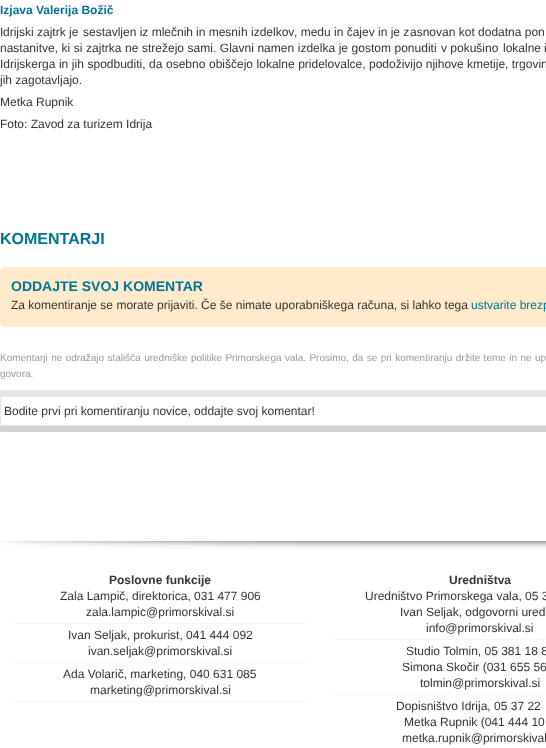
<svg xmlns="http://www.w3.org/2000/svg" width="546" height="748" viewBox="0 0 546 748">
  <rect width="100%" height="100%" fill="#ffffff"/>
  <text x="0" y="14" font-family="Liberation Sans" font-size="12" font-weight="bold" fill="#007495">Izjava Valerija Božič</text>
  <text x="0" y="36" font-family="Liberation Sans" font-size="12" fill="#333333">I</text>
  <text x="3" y="36" font-family="Liberation Sans" font-size="12" fill="#333333">drijski zajtrk je</text>
  <text x="83" y="36" font-family="Liberation Sans" font-size="12" fill="#333333">sestavljen iz mlečnih</text>
  <text x="196" y="36" font-family="Liberation Sans" font-size="12" fill="#333333">in mesni</text>
  <text x="241" y="36" font-family="Liberation Sans" font-size="12" fill="#333333">h izdelkov</text>
  <text x="294" y="36" font-family="Liberation Sans" font-size="12" fill="#333333">, medu</text>
  <text x="334" y="36" font-family="Liberation Sans" font-size="12" fill="#333333">in čajev in je z</text>
  <text x="410" y="36" font-family="Liberation Sans" font-size="12" fill="#333333">asnovan kot dodatna pon</text>
  <text x="0" y="52" word-spacing="0.25" font-family="Liberation Sans" font-size="12" fill="#333333">nastanitve, ki si zajtrka ne strežejo sami. Glavni namen izdelka je gostom ponuditi</text>
  <text x="441" y="52" font-family="Liberation Sans" font-size="12" fill="#333333">v pokušino</text>
  <text x="503" y="52" font-family="Liberation Sans" font-size="12" fill="#333333">lokalne</text>
  <text x="544" y="52" font-family="Liberation Sans" font-size="12" fill="#333333">i</text>
  <text x="0" y="68" word-spacing="0.25" font-family="Liberation Sans" font-size="12" fill="#333333">Idrijskerga in jih spodbuditi, da osebno obiščejo lokalne pridelovalce,</text>
  <text x="369" y="68" font-family="Liberation Sans" font-size="12" fill="#333333">podoživijo njihove kmetije, trgovin</text>
  <text x="0" y="84" font-family="Liberation Sans" font-size="12" fill="#333333">jih zagotavljajo.</text>
  <text x="0" y="106" font-family="Liberation Sans" font-size="12" fill="#333333">Metka Rupnik</text>
  <text x="0" y="128" font-family="Liberation Sans" font-size="12" fill="#333333">Foto: Zavod za turizem Idrija</text>
  <text x="0" y="244" font-family="Liberation Sans" font-size="16" font-weight="bold" fill="#007495">KOMENTARJI</text>
  <rect x="0.5" y="267.5" width="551" height="59" rx="4.5" fill="#ffebcc" stroke="#ffebcc"/>
  <text x="11" y="291" font-family="Liberation Sans" font-size="14" font-weight="bold" fill="#007495">ODDAJTE SVOJ KOMENTAR</text>
  <text x="11" y="309" font-family="Liberation Sans" font-size="12" fill="#333333">Za komentiranje se morate prijaviti. Če še nimate uporabniškega računa, si lahko tega</text>
  <text x="471" y="309" font-family="Liberation Sans" font-size="12" fill="#007495">ustvarite brezp</text>
  <text x="0" y="361" word-spacing="0.6" font-family="Liberation Sans" font-size="10" fill="#999999">Komentarji ne odražajo stališča uredniške politike Primorskega vala. Prosimo, da se pri komentiranju držite teme in ne up</text>
  <text x="0" y="377" font-family="Liberation Sans" font-size="10" fill="#999999">govora.</text>
  <rect x="0" y="390" width="546" height="6" fill="#e5e5e5"/>
  <rect x="0.5" y="396.5" width="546" height="29" fill="none" stroke="#e5e5e5"/>
  <text x="4" y="415" font-family="Liberation Sans" font-size="12" fill="#333333">Bodite prvi pri komentiranju novice, oddajte svoj komentar!</text>
  <rect x="0" y="426" width="546" height="6" fill="#d2d2d2"/>
  <image x="0" y="541" width="546" height="9" href="img1.png"/>
  <text x="109" y="584" font-family="Liberation Sans" font-size="12" font-weight="bold" fill="#333333">Poslovne funkcije</text>
  <path d="M10 623.5H310" fill="none" stroke="#efefef" stroke-dasharray="1 1"/>
  <text x="60" y="600" font-family="Liberation Sans" font-size="12" fill="#333333">Zala Lampič, direktorica, 031 477 906</text>
  <text x="86" y="616" font-family="Liberation Sans" font-size="12" fill="#333333">zala.lampic@primorskival.si</text>
  <path d="M10 662.5H310" fill="none" stroke="#efefef" stroke-dasharray="1 1"/>
  <text x="68" y="639" font-family="Liberation Sans" font-size="12" fill="#333333">Ivan Seljak, prokurist, 041 444 092</text>
  <text x="88" y="655" font-family="Liberation Sans" font-size="12" fill="#333333">ivan.seljak@primorskival.si</text>
  <path d="M10 701.5H310" fill="none" stroke="#efefef" stroke-dasharray="1 1"/>
  <text x="63" y="678" font-family="Liberation Sans" font-size="12" fill="#333333">Ada Volarič, marketing, 040 631 085</text>
  <text x="90" y="694" font-family="Liberation Sans" font-size="12" fill="#333333">marketing@primorskival.si</text>
  <text x="449" y="584" font-family="Liberation Sans" font-size="12" font-weight="bold" fill="#333333">Uredništva</text>
  <path d="M330 639.5H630" fill="none" stroke="#efefef" stroke-dasharray="1 1"/>
  <text x="365" y="600" font-family="Liberation Sans" font-size="12" fill="#333333">Uredništvo Primorskega vala, 05 3</text>
  <text x="400" y="616" font-family="Liberation Sans" font-size="12" fill="#333333">Ivan Seljak, odgovorni ured</text>
  <text x="426" y="632" font-family="Liberation Sans" font-size="12" fill="#333333">info@primorskival.si</text>
  <path d="M330 694.5H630" fill="none" stroke="#efefef" stroke-dasharray="1 1"/>
  <text x="406" y="655" font-family="Liberation Sans" font-size="12" fill="#333333">Studio Tolmin, 05 381 18 8</text>
  <text x="402" y="671" font-family="Liberation Sans" font-size="12" fill="#333333">Simona Skočir (031 655 56</text>
  <text x="420" y="687" font-family="Liberation Sans" font-size="12" fill="#333333">tolmin@primorskival.si</text>
  <text x="396" y="710" font-family="Liberation Sans" font-size="12" fill="#333333">Dopisništvo Idrija, 05 37 22</text>
  <text x="404" y="726" font-family="Liberation Sans" font-size="12" fill="#333333">Metka Rupnik (041 444 10</text>
  <text x="402" y="742" font-family="Liberation Sans" font-size="12" fill="#333333">metka.rupnik@primorskival</text>
</svg>
